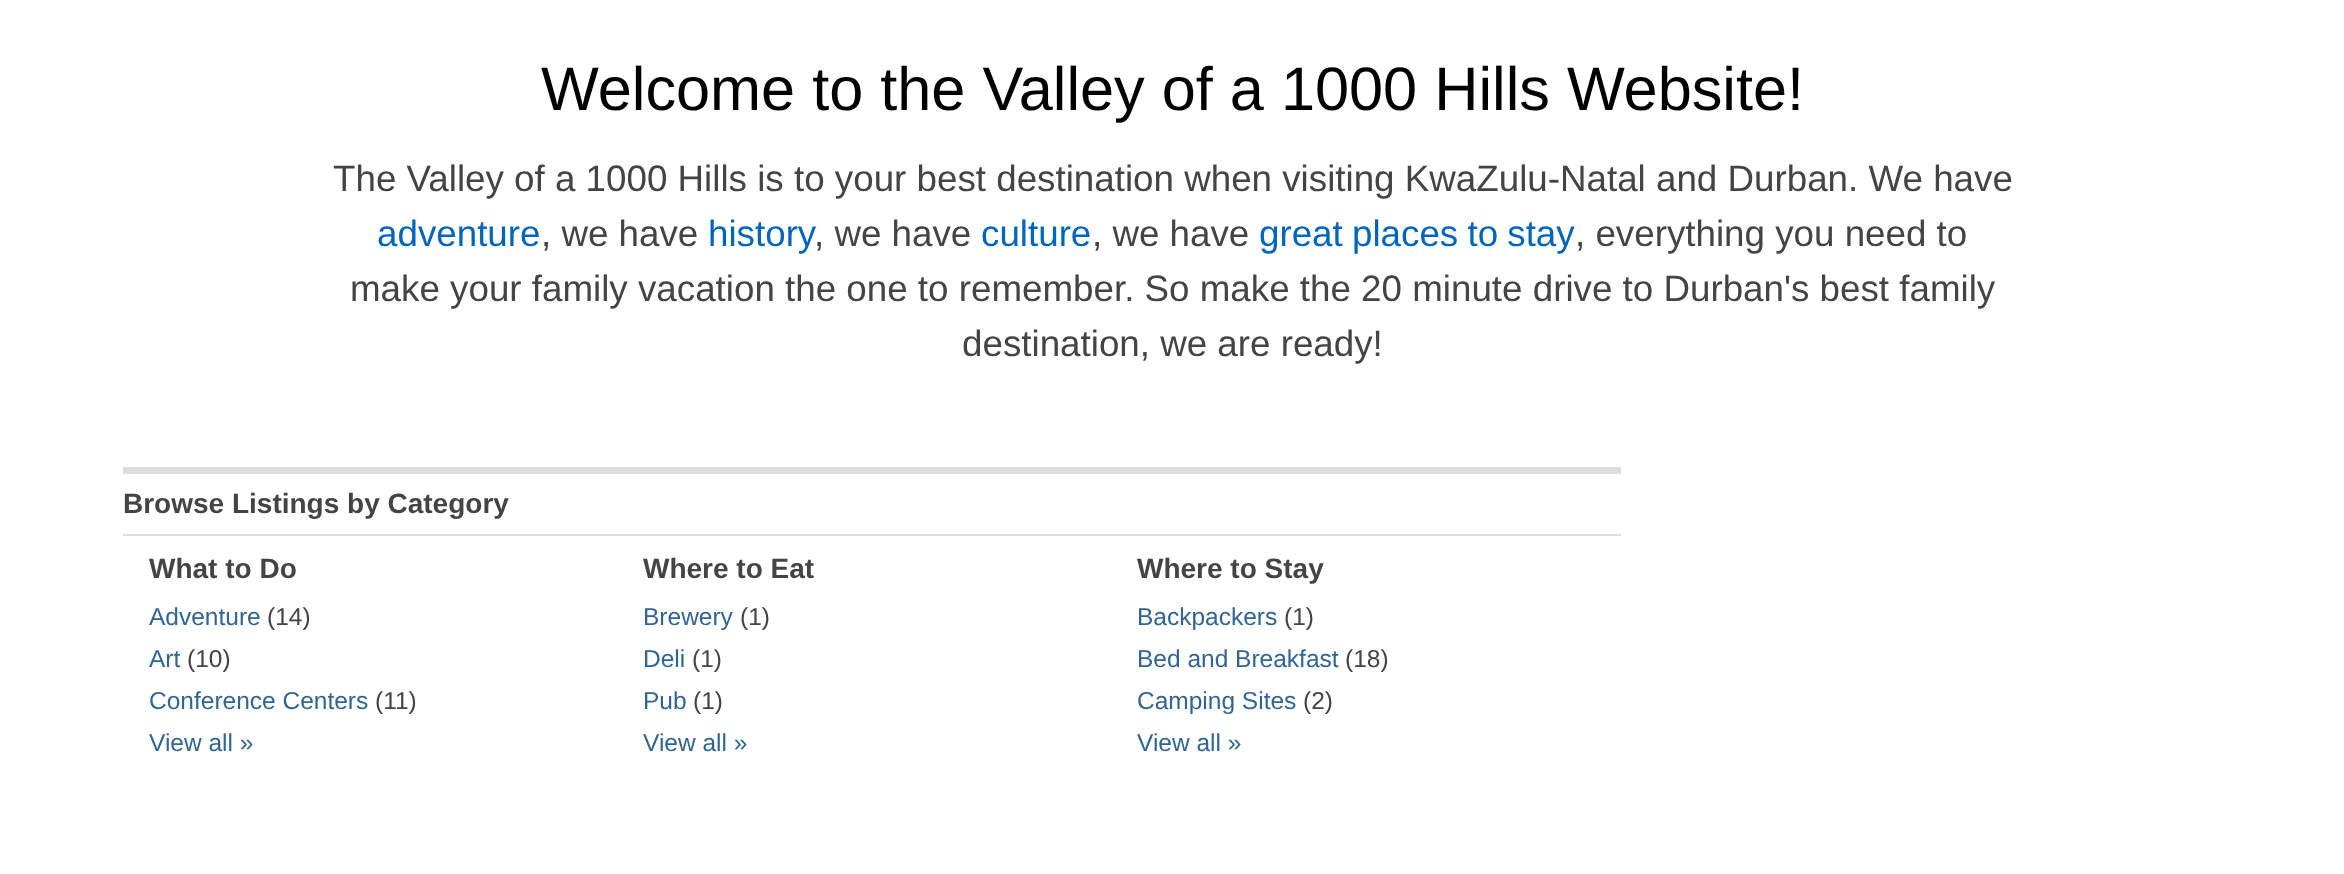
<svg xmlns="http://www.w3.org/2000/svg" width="2344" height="874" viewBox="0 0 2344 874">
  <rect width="100%" height="100%" fill="#ffffff"/>
  <text x="541" y="110" font-family="Liberation Sans" font-size="61.25" fill="#000000">Welcome to the Valley of a 1000 Hills Website!</text>
  <text x="333" y="191" font-family="Liberation Sans" font-size="36.75" fill="#444444">The Valley of a 1000 Hills is to your best destination when visiting KwaZulu-Natal and Durban. We have</text>
  <text x="377" y="246" font-family="Liberation Sans" font-size="36.75" fill="#0165bd">adventure</text>
  <text x="541" y="246" font-family="Liberation Sans" font-size="36.75" fill="#444444">, we have</text>
  <text x="708" y="246" font-family="Liberation Sans" font-size="36.75" fill="#0165bd">history</text>
  <text x="814" y="246" font-family="Liberation Sans" font-size="36.75" fill="#444444">, we have</text>
  <text x="981" y="246" font-family="Liberation Sans" font-size="36.75" fill="#0165bd">culture</text>
  <text x="1092" y="246" font-family="Liberation Sans" font-size="36.75" fill="#444444">, we have</text>
  <text x="1259" y="246" word-spacing="-1" font-family="Liberation Sans" font-size="36.75" fill="#0165bd">great places to stay</text>
  <text x="1575" y="246" font-family="Liberation Sans" font-size="36.75" fill="#444444">, everything you need to</text>
  <text x="350" y="301" font-family="Liberation Sans" font-size="36.75" fill="#444444">make your family vacation the one to remember. So make the 20 minute drive to Durban's best family</text>
  <text x="962" y="356" font-family="Liberation Sans" font-size="36.75" fill="#444444">destination, we are ready!</text>
  <rect x="123" y="467" width="1498" height="7" fill="#dedede"/>
  <rect x="123" y="534" width="1498" height="2" fill="#dedede"/>
  <text x="123" y="513" font-family="Liberation Sans" font-size="28" font-weight="bold" fill="#444444">Browse Listings by Category</text>
  <text x="149" y="578" font-family="Liberation Sans" font-size="28" font-weight="bold" fill="#444444">What to Do</text>
  <text x="149" y="625" font-family="Liberation Sans" font-size="24.5" fill="#316593">Adventure</text>
  <text x="267" y="625" font-family="Liberation Sans" font-size="24.5" fill="#444444">(14)</text>
  <text x="149" y="667" font-family="Liberation Sans" font-size="24.5" fill="#316593">Art</text>
  <text x="187" y="667" font-family="Liberation Sans" font-size="24.5" fill="#444444">(10)</text>
  <text x="149" y="709" font-family="Liberation Sans" font-size="24.5" fill="#316593">Conference Centers</text>
  <text x="375" y="709" font-family="Liberation Sans" font-size="24.5" fill="#444444">(11)</text>
  <text x="149" y="751" font-family="Liberation Sans" font-size="24.5" fill="#316593">View all »</text>
  <text x="643" y="578" font-family="Liberation Sans" font-size="28" font-weight="bold" fill="#444444">Where to Eat</text>
  <text x="643" y="625" font-family="Liberation Sans" font-size="24.5" fill="#316593">Brewery</text>
  <text x="740" y="625" font-family="Liberation Sans" font-size="24.5" fill="#444444">(1)</text>
  <text x="643" y="667" font-family="Liberation Sans" font-size="24.5" fill="#316593">Deli</text>
  <text x="692" y="667" font-family="Liberation Sans" font-size="24.5" fill="#444444">(1)</text>
  <text x="643" y="709" font-family="Liberation Sans" font-size="24.5" fill="#316593">Pub</text>
  <text x="693" y="709" font-family="Liberation Sans" font-size="24.5" fill="#444444">(1)</text>
  <text x="643" y="751" font-family="Liberation Sans" font-size="24.5" fill="#316593">View all »</text>
  <text x="1137" y="578" font-family="Liberation Sans" font-size="28" font-weight="bold" fill="#444444">Where to Stay</text>
  <text x="1137" y="625" font-family="Liberation Sans" font-size="24.5" fill="#316593">Backpackers</text>
  <text x="1284" y="625" font-family="Liberation Sans" font-size="24.5" fill="#444444">(1)</text>
  <text x="1137" y="667" font-family="Liberation Sans" font-size="24.5" fill="#316593">Bed and Breakfast</text>
  <text x="1345" y="667" font-family="Liberation Sans" font-size="24.5" fill="#444444">(18)</text>
  <text x="1137" y="709" font-family="Liberation Sans" font-size="24.5" fill="#316593">Camping Sites</text>
  <text x="1303" y="709" font-family="Liberation Sans" font-size="24.5" fill="#444444">(2)</text>
  <text x="1137" y="751" font-family="Liberation Sans" font-size="24.5" fill="#316593">View all »</text>
</svg>
